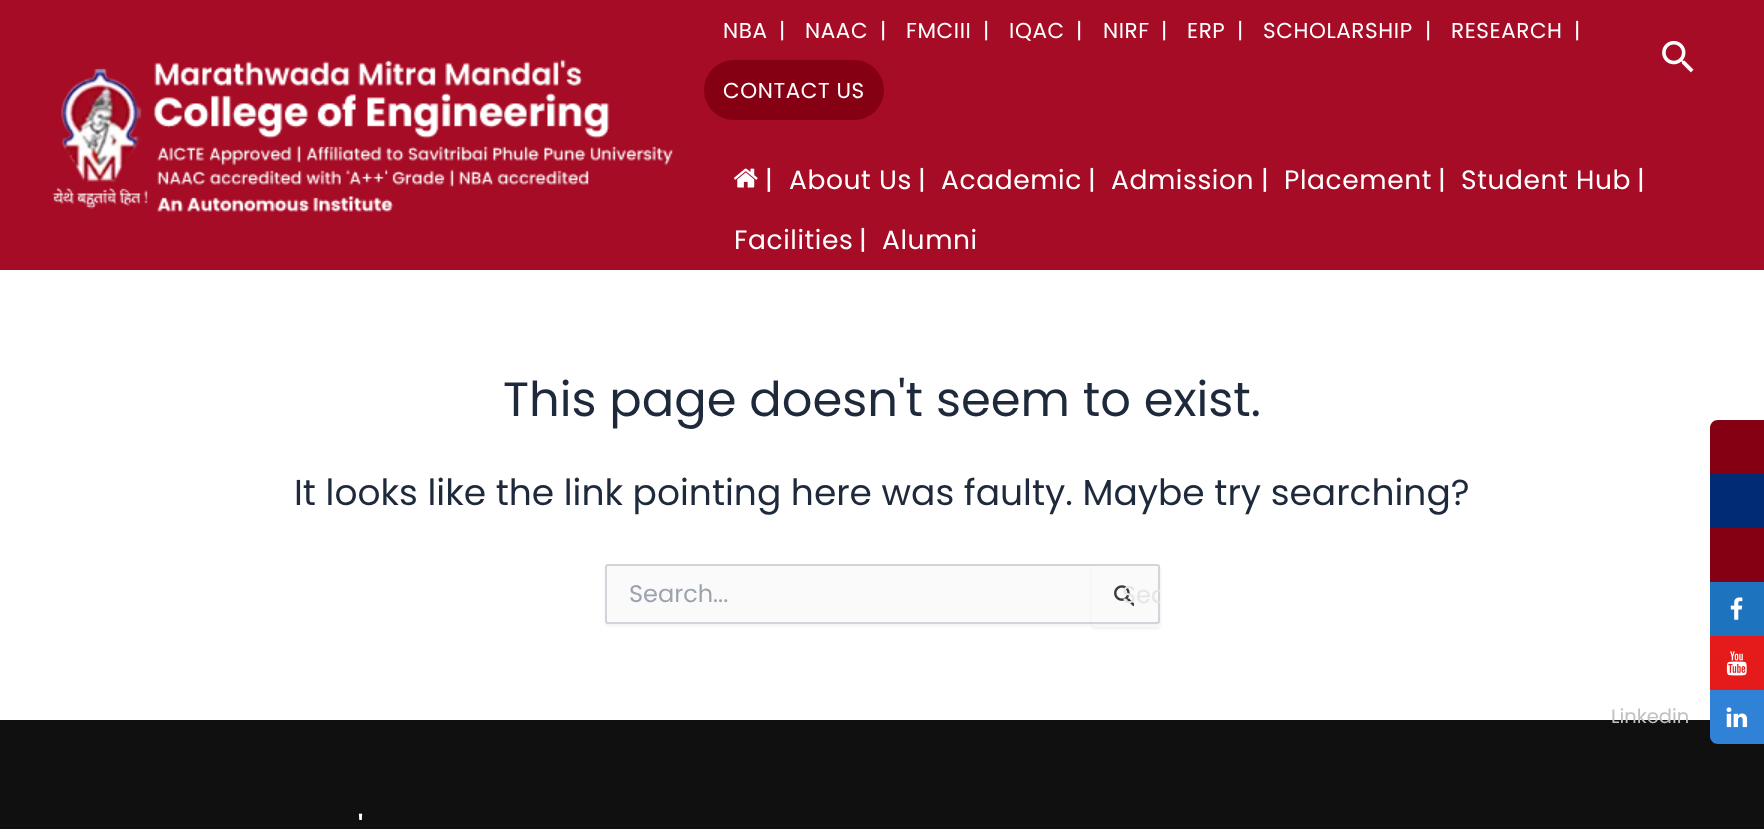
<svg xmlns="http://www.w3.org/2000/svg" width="1764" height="829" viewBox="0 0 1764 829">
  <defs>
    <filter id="blur1" x="-50%" y="-200%" width="200%" height="500%"><feGaussianBlur stdDeviation="1.5"/></filter>
    <clipPath id="clip1"><path d="M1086 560H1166V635H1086ZM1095 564H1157C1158.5 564 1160 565.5 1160 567V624C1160 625.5 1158.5 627 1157 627H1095C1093.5 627 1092 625.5 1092 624V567C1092 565.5 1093.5 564 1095 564Z" clip-rule="evenodd"/></clipPath>
    <clipPath id="clip2"><rect x="1092" y="564" width="68" height="63" rx="3"/></clipPath>
  </defs>
  <rect width="100%" height="100%" fill="#ffffff"/>
  <rect x="0" y="0" width="1764" height="270" fill="#a60c25"/>
  <image x="52" y="59" width="622" height="153" href="img1.png"/>
  <text x="723" y="38" font-family="Poppins" font-size="21.5" letter-spacing="0.6" fill="#ffffff">NBA</text>
  <text x="779" y="38" font-family="Poppins" font-size="21.5" letter-spacing="0.6" fill="#ffffff">|</text>
  <text x="805" y="38" font-family="Poppins" font-size="21.5" letter-spacing="0.6" fill="#ffffff">NAAC</text>
  <text x="880" y="38" font-family="Poppins" font-size="21.5" letter-spacing="0.6" fill="#ffffff">|</text>
  <text x="906" y="38" font-family="Poppins" font-size="21.5" letter-spacing="0.6" fill="#ffffff">FMCIII</text>
  <text x="983" y="38" font-family="Poppins" font-size="21.5" letter-spacing="0.6" fill="#ffffff">|</text>
  <text x="1009" y="38" font-family="Poppins" font-size="21.5" letter-spacing="0.6" fill="#ffffff">IQAC</text>
  <text x="1076" y="38" font-family="Poppins" font-size="21.5" letter-spacing="0.6" fill="#ffffff">|</text>
  <text x="1103" y="38" font-family="Poppins" font-size="21.5" letter-spacing="0.6" fill="#ffffff">NIRF</text>
  <text x="1161" y="38" font-family="Poppins" font-size="21.5" letter-spacing="0.6" fill="#ffffff">|</text>
  <text x="1187" y="38" font-family="Poppins" font-size="21.5" letter-spacing="0.6" fill="#ffffff">ERP</text>
  <text x="1237" y="38" font-family="Poppins" font-size="21.5" letter-spacing="0.6" fill="#ffffff">|</text>
  <text x="1263" y="38" font-family="Poppins" font-size="21.5" letter-spacing="0.6" fill="#ffffff">SCHOLARSHIP</text>
  <text x="1425" y="38" font-family="Poppins" font-size="21.5" letter-spacing="0.6" fill="#ffffff">|</text>
  <text x="1451" y="38" font-family="Poppins" font-size="21.5" letter-spacing="0.6" fill="#ffffff">RESEARCH</text>
  <text x="1574" y="38" font-family="Poppins" font-size="21.5" letter-spacing="0.6" fill="#ffffff">|</text>
  <rect x="704" y="60" width="180" height="60" rx="30" fill="#850013"/>
  <text x="723" y="98" font-family="Poppins" font-size="21.5" letter-spacing="0.6" fill="#ffffff">CONTACT US</text>
  <image x="1662" y="41" width="32" height="32" href="img2.png"/>
  <image x="733" y="168" width="25" height="20" href="img3.png"/>
  <text x="765" y="189" font-family="Poppins" font-size="26.5" letter-spacing="0.6" fill="#ffffff">|</text>
  <text x="789" y="189" font-family="Poppins" font-size="26.5" letter-spacing="0.6" fill="#ffffff">About Us</text>
  <text x="918" y="189" font-family="Poppins" font-size="26.5" letter-spacing="0.6" fill="#ffffff">|</text>
  <text x="941" y="189" font-family="Poppins" font-size="26.5" letter-spacing="0.6" fill="#ffffff">Academic</text>
  <text x="1088" y="189" font-family="Poppins" font-size="26.5" letter-spacing="0.6" fill="#ffffff">|</text>
  <text x="1111" y="189" font-family="Poppins" font-size="26.5" letter-spacing="0.6" fill="#ffffff">Admission</text>
  <text x="1261" y="189" font-family="Poppins" font-size="26.5" letter-spacing="0.6" fill="#ffffff">|</text>
  <text x="1284" y="189" font-family="Poppins" font-size="26.5" letter-spacing="0.6" fill="#ffffff">Placement</text>
  <text x="1438" y="189" font-family="Poppins" font-size="26.5" letter-spacing="0.6" fill="#ffffff">|</text>
  <text x="1461" y="189" font-family="Poppins" font-size="26.5" letter-spacing="0.6" fill="#ffffff">Student Hub</text>
  <text x="1637" y="189" font-family="Poppins" font-size="26.5" letter-spacing="0.6" fill="#ffffff">|</text>
  <text x="734" y="249" font-family="Poppins" font-size="26.5" letter-spacing="0.6" fill="#ffffff">Facilities</text>
  <text x="859" y="249" font-family="Poppins" font-size="26.5" letter-spacing="0.6" fill="#ffffff">|</text>
  <text x="882" y="249" font-family="Poppins" font-size="26.5" letter-spacing="0.6" fill="#ffffff">Alumni</text>
  <text x="503" y="416" font-family="Poppins" font-size="48" fill="#1e293b">This page doesn't seem to exist.</text>
  <text x="294" y="505" font-family="Poppins" font-size="36" fill="#1e293b">It looks like the link pointing here was faulty. Maybe try searching?</text>
  <rect x="605" y="566" width="555" height="60" rx="3" fill="#000000" fill-opacity="0.05" filter="url(#blur1)"/>
  <rect x="606" y="565" width="553" height="58" rx="2" fill="#fafafa" stroke="#d1d5db" stroke-width="2"/>
  <text x="629" y="602" font-family="Poppins" font-size="24" fill="#9ca3af">Search...</text>
  <image x="1114" y="585" width="20" height="22" href="img4.png"/>
  <g clip-path="url(#clip1)">
    <rect x="1092" y="566" width="68" height="63" rx="3" fill="#000000" fill-opacity="0.05" filter="url(#blur1)"/>
  </g>
  <g clip-path="url(#clip2)">
    <text x="1122" y="603" font-family="Poppins" font-size="24" fill="#e5e5e6">Sea</text>
  </g>
  <rect x="0" y="720" width="1764" height="109" fill="#101010"/>
  <text x="358" y="836" font-family="Poppins" font-size="27" font-weight="bold" fill="#ffffff">'</text>
  <path d="M1718 420H1764V474H1710V428C1710 423.5 1713.5 420 1718 420Z" fill="#850013"/>
  <rect x="1710" y="474" width="54" height="54" fill="#022b76"/>
  <rect x="1710" y="528" width="54" height="54" fill="#850013"/>
  <rect x="1710" y="582" width="54" height="54" fill="#1e73be"/>
  <image x="1730" y="597" width="13" height="23" href="img5.png"/>
  <rect x="1710" y="636" width="54" height="54" fill="#e51b1b"/>
  <image x="1726" y="651" width="21" height="25" href="img6.png"/>
  <path d="M1710 690H1764V744H1718C1713.5 744 1710 740.5 1710 736Z" fill="#2f82d6"/>
  <text x="1611" y="723" font-family="Poppins" font-size="19.5" fill="#c0c0c0">Linkedin</text>
  <image x="1726" y="707" width="22" height="21" href="img7.png"/>
</svg>
